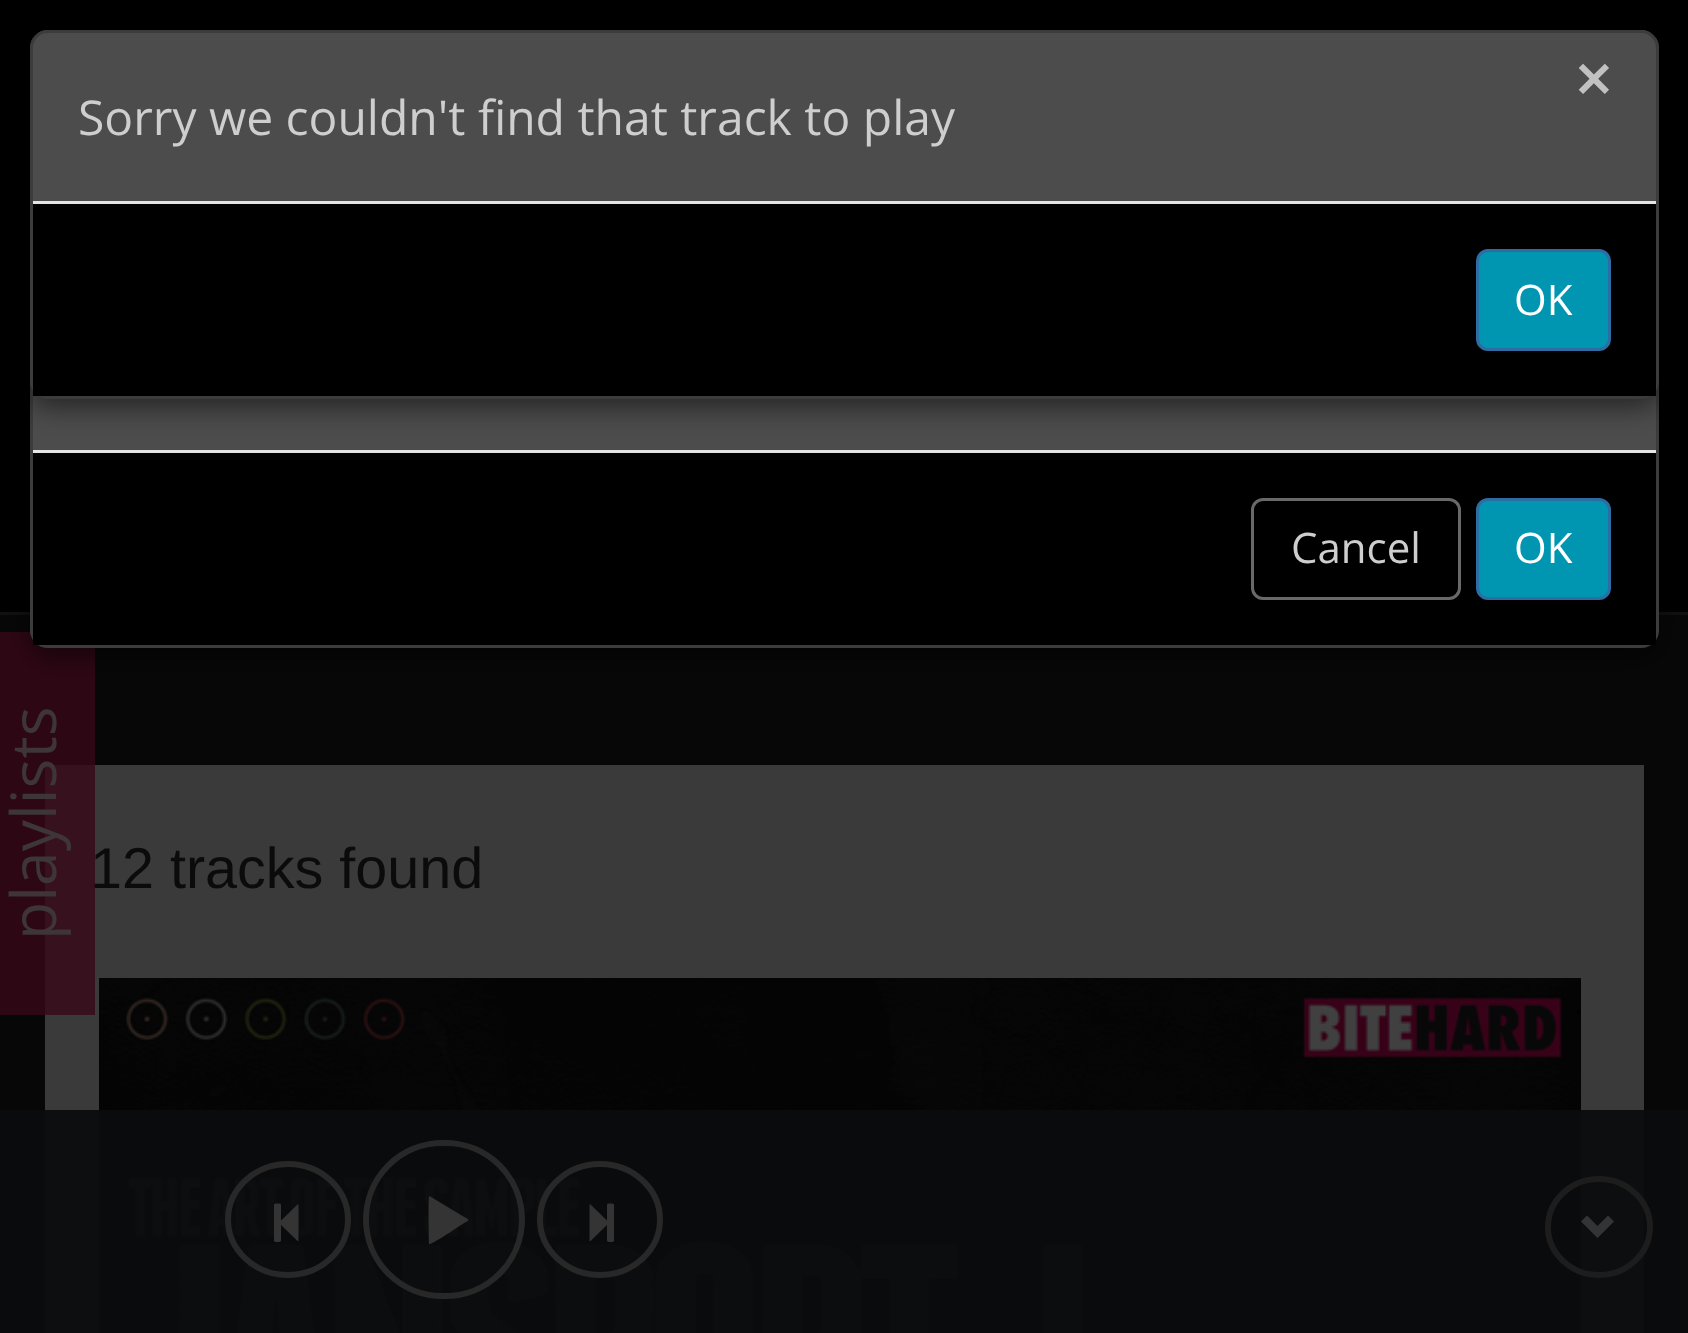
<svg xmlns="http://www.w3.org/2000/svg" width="1688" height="1333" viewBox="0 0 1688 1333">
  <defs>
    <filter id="blur1" x="-50%" y="-200%" width="200%" height="500%"><feGaussianBlur stdDeviation="13.5"/></filter>
  </defs>
  <rect width="100%" height="100%" fill="#070707"/>
  <rect x="0" y="0" width="1688" height="612" fill="#000000"/>
  <rect x="0" y="612" width="1688" height="3" fill="#111111"/>
  <rect x="45" y="765" width="1599" height="568" fill="#3a3a3a"/>
  <text x="90" y="888" font-family="Liberation Sans" font-size="57.5" fill="#0b0b0b">12 tracks found</text>
  <rect x="0" y="632" width="95" height="383" fill="#380818" fill-opacity="0.8"/>
  <rect x="30" y="39" width="1629" height="618" rx="18" fill="#000000" fill-opacity="0.5" filter="url(#blur1)"/>
  <rect x="30" y="30" width="1629" height="618" rx="18" fill="#4c4c4c"/>
  <rect x="31.5" y="31.5" width="1626" height="615" rx="16.5" fill="none" stroke="#000000" stroke-opacity="0.2" stroke-width="3"/>
  <rect x="33" y="33" width="1623" height="5" fill="#000000"/>
  <rect x="30" y="39" width="1629" height="369" rx="18" fill="#000000" fill-opacity="0.5" filter="url(#blur1)"/>
  <rect x="30" y="30" width="1629" height="369" rx="18" fill="#4c4c4c"/>
  <rect x="31.5" y="31.5" width="1626" height="366" rx="16.5" fill="none" stroke="#000000" stroke-opacity="0.2" stroke-width="3"/>
  <text x="1575" y="102" font-family="Open Sans" font-size="63" font-weight="bold" fill="#c1c1c1">×</text>
  <text x="78" y="135" font-family="Open Sans" font-size="48" fill="#cecece">Sorry we couldn't find that track to play</text>
  <rect x="33" y="204" width="1623" height="192" fill="#000000"/>
  <rect x="33" y="201" width="1623" height="3" fill="#e5e5e5"/>
  <rect x="1477.5" y="250.5" width="132" height="99" rx="10.5" fill="#0096b1" stroke="#2e6da4" stroke-width="3"/>
  <text x="1514" y="315" font-family="Open Sans" font-size="42" fill="#ffffff">OK</text>
  <rect x="33" y="453" width="1623" height="192" fill="#000000"/>
  <rect x="33" y="450" width="1623" height="3" fill="#e5e5e5"/>
  <rect x="1252.5" y="499.5" width="207" height="99" rx="10.5" fill="none" stroke="#686969" stroke-width="3"/>
  <text x="1291" y="563" font-family="Open Sans" font-size="42" fill="#cecece">Cancel</text>
  <rect x="1477.5" y="499.5" width="132" height="99" rx="10.5" fill="#0096b1" stroke="#2e6da4" stroke-width="3"/>
  <text x="1514" y="563" font-family="Open Sans" font-size="42" fill="#ffffff">OK</text>
  <text x="56" y="940" transform="rotate(-90 56 940)" font-family="Open Sans" font-size="62.5" fill="#3d3538">playlists</text>
  <image x="99" y="978" width="1482" height="355" href="img1.png"/>
  <rect x="0" y="1110" width="1688" height="223" fill="#0b0c0d" fill-opacity="0.95"/>
  <path d="M288 1164C321 1164 348 1189 348 1219.5C348 1250 321 1275 288 1275C255 1275 228 1250 228 1219.5C228 1189 255 1164 288 1164Z" fill="none" stroke="#282828" stroke-width="6"/>
  <image x="274" y="1203" width="25" height="39" href="img2.png"/>
  <rect x="366" y="1143" width="156" height="153" rx="76.5" fill="none" stroke="#282828" stroke-width="6"/>
  <path d="M431 1197L461 1215C471 1221 471 1219 461 1225L449 1233C447 1234 431 1245 429 1244C429 1244 428 1201 429 1197C429 1196 430 1196 431 1197Z" fill="#343434"/>
  <path d="M600 1164C633 1164 660 1189 660 1219.5C660 1250 633 1275 600 1275C567 1275 540 1250 540 1219.5C540 1189 567 1164 600 1164Z" fill="none" stroke="#282828" stroke-width="6"/>
  <image x="589" y="1203" width="25" height="39" href="img3.png"/>
  <path d="M1599 1179C1627 1179 1650 1200.5 1650 1227C1650 1253.5 1627 1275 1599 1275C1571 1275 1548 1253.5 1548 1227C1548 1200.5 1571 1179 1599 1179Z" fill="none" stroke="#1d1d1d" stroke-width="6"/>
  <path d="M1614 1221.5L1597.5 1238L1581 1221.5L1587 1215.5L1597.5 1226L1608 1215.5Z" fill="#343434"/>
</svg>
